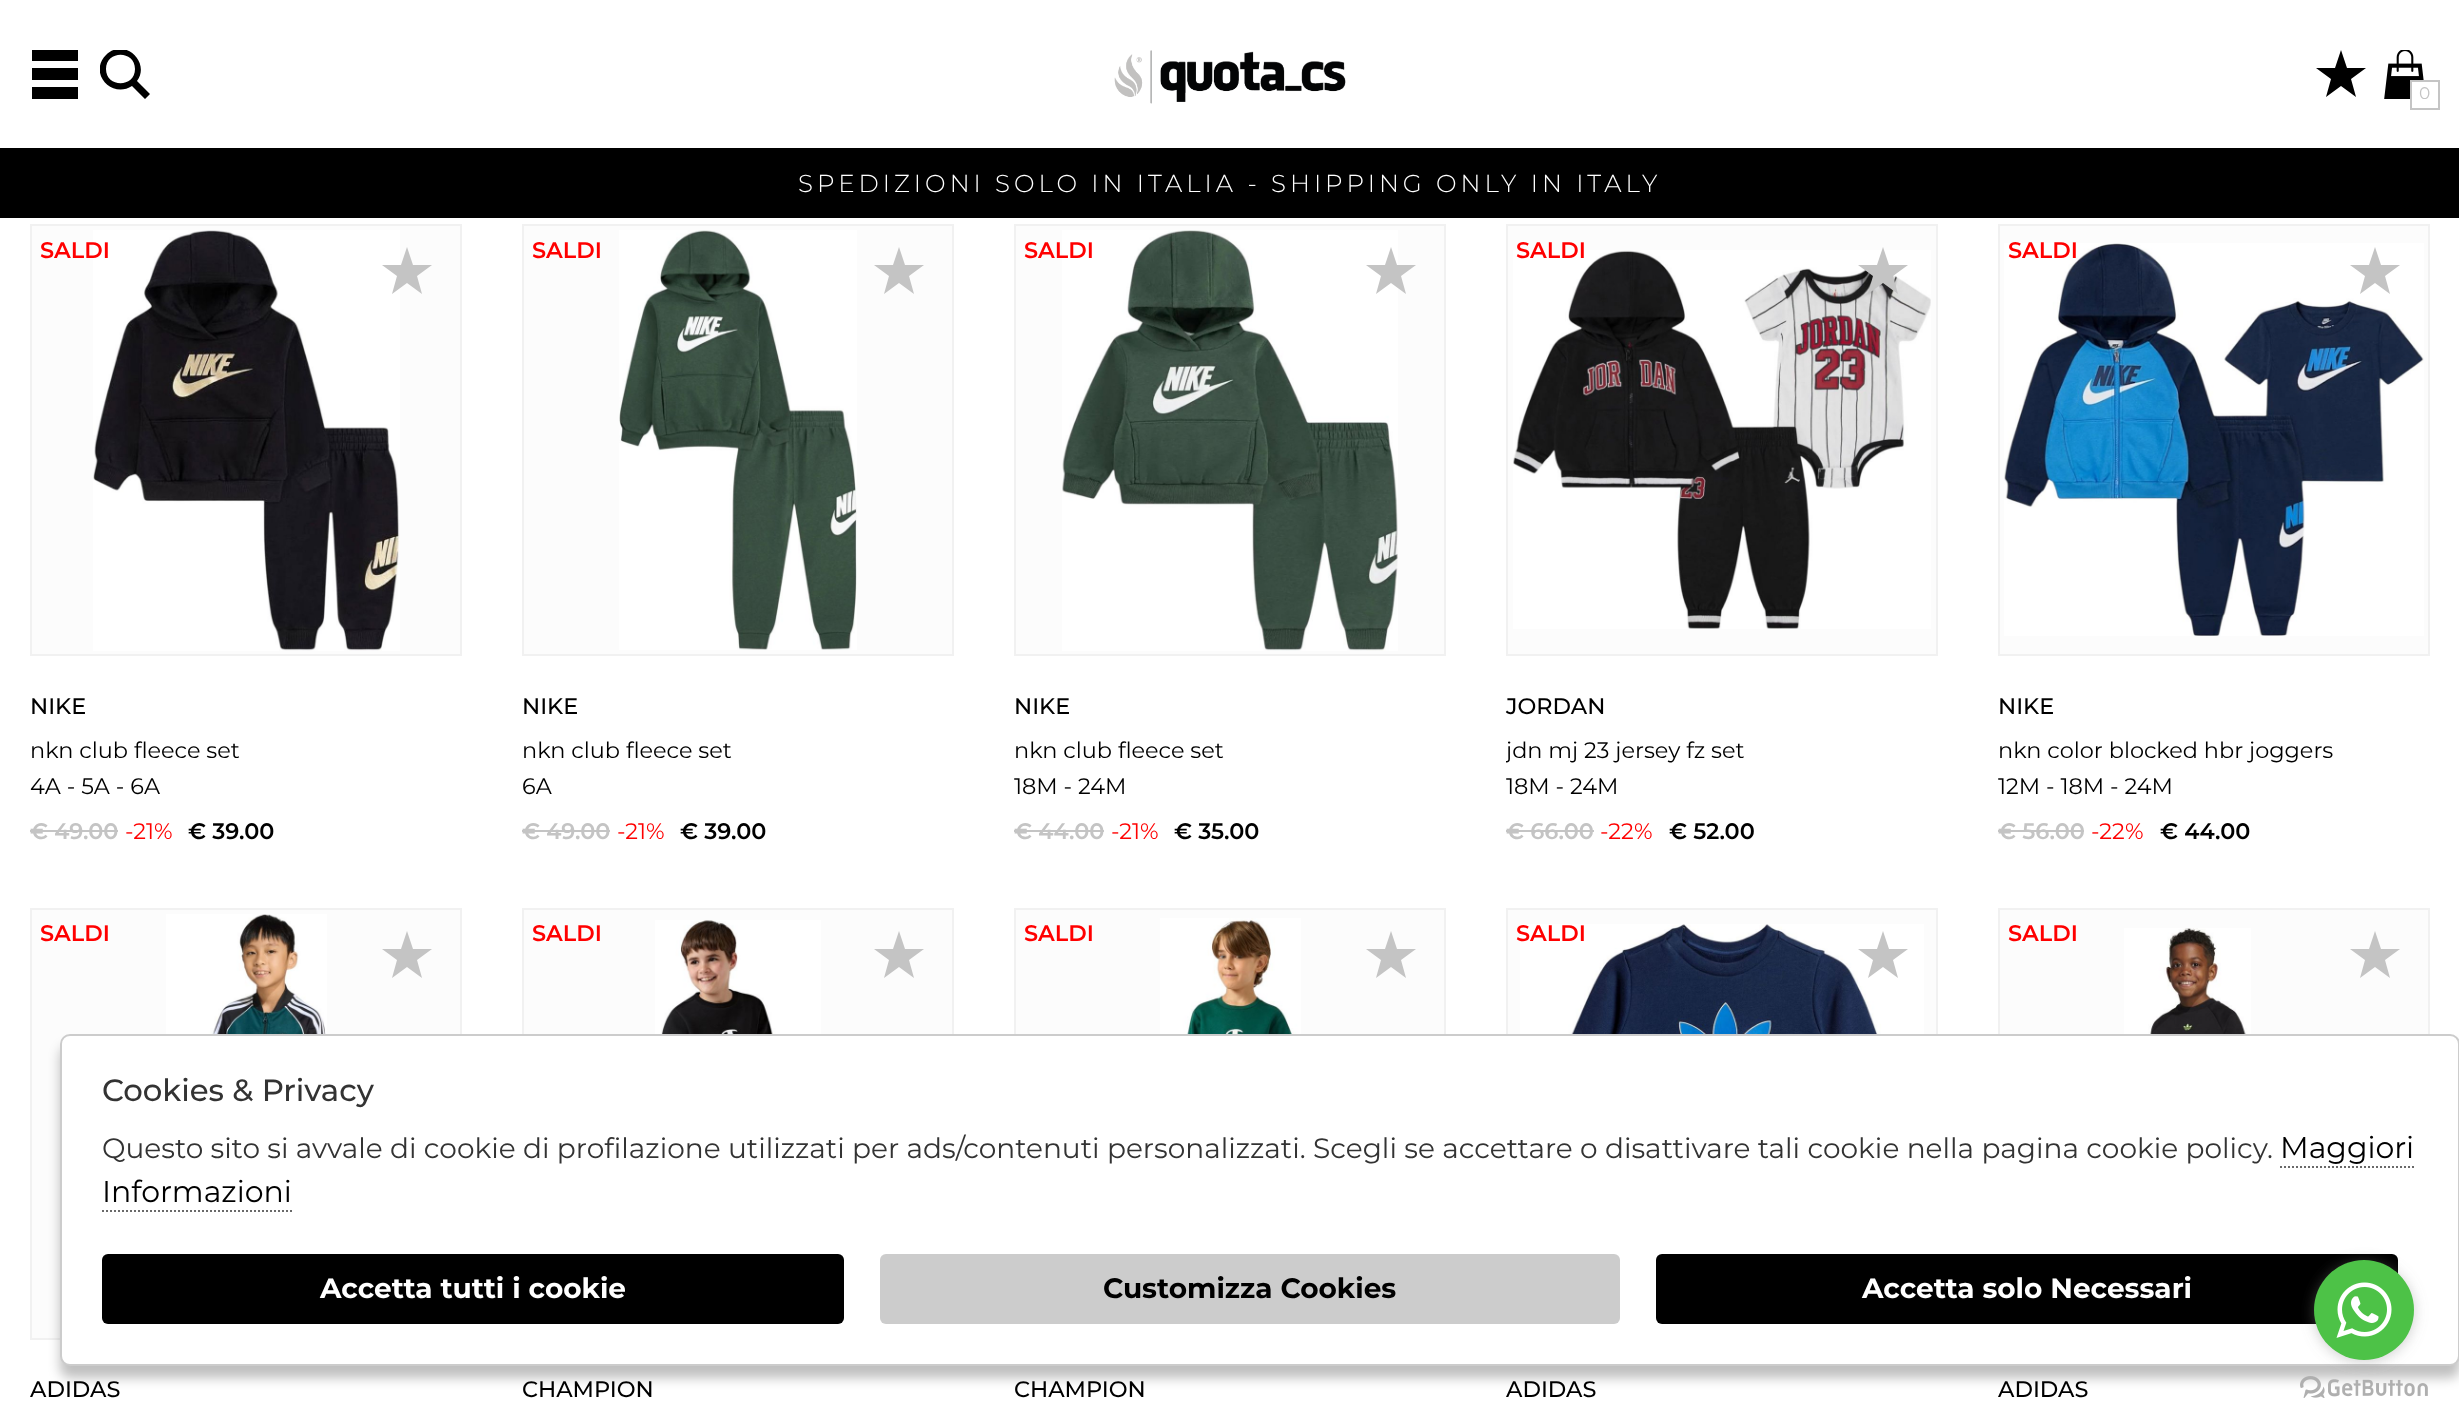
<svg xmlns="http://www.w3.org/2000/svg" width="2459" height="1426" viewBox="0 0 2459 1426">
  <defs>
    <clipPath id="clip1"><rect x="100" y="50" width="50" height="50"/></clipPath>
    <clipPath id="clip2"><rect x="1506" y="738" width="432" height="26"/></clipPath>
    <filter id="blur1" x="-50%" y="-200%" width="200%" height="500%"><feGaussianBlur stdDeviation="6"/></filter>
    <filter id="blur2" x="-50%" y="-200%" width="200%" height="500%"><feGaussianBlur stdDeviation="7"/></filter>
  </defs>
  <rect width="100%" height="100%" fill="#ffffff"/>
  <rect x="32" y="50" width="46" height="11" fill="#000000"/>
  <rect x="32" y="87" width="46" height="12" fill="#000000"/>
  <rect x="32" y="68" width="46" height="12" fill="#000000"/>
  <g clip-path="url(#clip1)">
    <path d="M150 94L137 81C151 62 124 37 106 55C88 73 112 99 132 86L145 99ZM106 69C106 50 135 50 135 69C135 88 106 88 106 69Z" fill="#000000"/>
  </g>
  <image x="1114" y="50" width="232" height="54" href="img1.png"/>
  <path d="M2341 50L2347 68H2366L2351 79L2356 97L2341 86L2326 97L2331 79L2316 68H2335Z" fill="#000000"/>
  <image x="2384" y="50" width="40" height="49" href="img2.png"/>
  <rect x="2412" y="82" width="12" height="17" fill="#ffffff"/>
  <rect x="2411" y="81" width="28" height="28" fill="none" stroke="#c4c4c4" stroke-width="2"/>
  <text x="2419" y="99" font-family="Montserrat" font-size="17" fill="#c4c4c4">0</text>
  <rect x="0" y="148" width="2459" height="70" fill="#000000"/>
  <text x="798" y="192" font-family="Montserrat" font-size="24.5" font-weight="300" letter-spacing="4" fill="#ffffff">SPEDIZIONI SOLO IN ITALIA - SHIPPING ONLY IN ITALY</text>
  <rect x="31" y="225" width="430" height="430" fill="none" stroke="#f1f1f1" stroke-width="2"/>
  <rect x="32" y="226" width="428" height="428" fill="#fcfcfc"/>
  <image x="93" y="230" width="307" height="421" href="img3.png"/>
  <text x="40" y="258" font-family="Montserrat" font-size="22.4" font-weight="600" fill="#ff0000">SALDI</text>
  <path d="M407 247L413 265H432L417 276L422 294L407 283L392 294L397 276L382 265H401Z" fill="#c4c4c4"/>
  <text x="30" y="714" font-family="Montserrat" font-size="22.4" font-weight="500" fill="#000000">NIKE</text>
  <text x="30" y="758" font-family="Montserrat" font-size="22.4" fill="#000000">nkn club fleece set</text>
  <text x="30" y="794" font-family="Montserrat" font-size="22.4" fill="#000000">4A - 5A - 6A</text>
  <text x="30" y="839" font-family="Montserrat" font-size="22.4" font-weight="600" fill="#c4c4c4">€ 49.00</text>
  <rect x="30" y="830" width="88" height="2" fill="#c4c4c4"/>
  <text x="125" y="839" font-family="Montserrat" font-size="22.4" fill="#ff0000">-21%</text>
  <text x="188" y="839" font-family="Montserrat" font-size="22.4" font-weight="600" fill="#000000">€ 39.00</text>
  <rect x="523" y="225" width="430" height="430" fill="none" stroke="#f1f1f1" stroke-width="2"/>
  <rect x="524" y="226" width="428" height="428" fill="#fcfcfc"/>
  <text x="532" y="258" font-family="Montserrat" font-size="22.4" font-weight="600" fill="#ff0000">SALDI</text>
  <path d="M899 247L905 265H924L909 276L914 294L899 283L884 294L889 276L874 265H893Z" fill="#c4c4c4"/>
  <image x="619" y="230" width="238" height="420" href="img4.png"/>
  <text x="522" y="714" font-family="Montserrat" font-size="22.4" font-weight="500" fill="#000000">NIKE</text>
  <text x="522" y="758" font-family="Montserrat" font-size="22.4" fill="#000000">nkn club fleece set</text>
  <text x="522" y="794" font-family="Montserrat" font-size="22.4" fill="#000000">6A</text>
  <text x="522" y="839" font-family="Montserrat" font-size="22.4" font-weight="600" fill="#c4c4c4">€ 49.00</text>
  <rect x="522" y="830" width="88" height="2" fill="#c4c4c4"/>
  <text x="617" y="839" font-family="Montserrat" font-size="22.4" fill="#ff0000">-21%</text>
  <text x="680" y="839" font-family="Montserrat" font-size="22.4" font-weight="600" fill="#000000">€ 39.00</text>
  <rect x="1015" y="225" width="430" height="430" fill="none" stroke="#f1f1f1" stroke-width="2"/>
  <rect x="1016" y="226" width="428" height="428" fill="#fcfcfc"/>
  <image x="1062" y="230" width="336" height="421" href="img5.png"/>
  <text x="1024" y="258" font-family="Montserrat" font-size="22.4" font-weight="600" fill="#ff0000">SALDI</text>
  <path d="M1391 247L1397 265H1416L1401 276L1406 294L1391 283L1376 294L1381 276L1366 265H1385Z" fill="#c4c4c4"/>
  <text x="1014" y="714" font-family="Montserrat" font-size="22.4" font-weight="500" fill="#000000">NIKE</text>
  <text x="1014" y="758" font-family="Montserrat" font-size="22.4" fill="#000000">nkn club fleece set</text>
  <text x="1014" y="794" font-family="Montserrat" font-size="22.4" fill="#000000">18M - 24M</text>
  <text x="1014" y="839" font-family="Montserrat" font-size="22.4" font-weight="600" fill="#c4c4c4">€ 44.00</text>
  <rect x="1014" y="830" width="90" height="2" fill="#c4c4c4"/>
  <text x="1111" y="839" font-family="Montserrat" font-size="22.4" fill="#ff0000">-21%</text>
  <text x="1174" y="839" font-family="Montserrat" font-size="22.4" font-weight="600" fill="#000000">€ 35.00</text>
  <rect x="1507" y="225" width="430" height="430" fill="none" stroke="#f1f1f1" stroke-width="2"/>
  <rect x="1508" y="226" width="428" height="428" fill="#fcfcfc"/>
  <image x="1513" y="250" width="418" height="379" href="img6.png"/>
  <text x="1516" y="258" font-family="Montserrat" font-size="22.4" font-weight="600" fill="#ff0000">SALDI</text>
  <path d="M1883 247L1889 265H1908L1893 276L1898 294L1883 283L1868 294L1873 276L1858 265H1877Z" fill="#c4c4c4"/>
  <text x="1506" y="714" font-family="Montserrat" font-size="22.4" font-weight="500" fill="#000000">JORDAN</text>
  <g clip-path="url(#clip2)">
    <text x="1506" y="758" font-family="Montserrat" font-size="22.4" fill="#000000">jdn mj 23 jersey fz set</text>
  </g>
  <text x="1506" y="794" font-family="Montserrat" font-size="22.4" fill="#000000">18M - 24M</text>
  <text x="1506" y="839" font-family="Montserrat" font-size="22.4" font-weight="600" fill="#c4c4c4">€ 66.00</text>
  <rect x="1506" y="830" width="88" height="2" fill="#c4c4c4"/>
  <text x="1600" y="839" font-family="Montserrat" font-size="22.4" fill="#ff0000">-22%</text>
  <text x="1669" y="839" font-family="Montserrat" font-size="22.4" font-weight="600" fill="#000000">€ 52.00</text>
  <rect x="1999" y="225" width="430" height="430" fill="none" stroke="#f1f1f1" stroke-width="2"/>
  <rect x="2000" y="226" width="428" height="428" fill="#fcfcfc"/>
  <image x="2004" y="243" width="420" height="393" href="img7.png"/>
  <text x="2008" y="258" font-family="Montserrat" font-size="22.4" font-weight="600" fill="#ff0000">SALDI</text>
  <path d="M2375 247L2381 265H2400L2385 276L2390 294L2375 283L2360 294L2365 276L2350 265H2369Z" fill="#c4c4c4"/>
  <text x="1998" y="714" font-family="Montserrat" font-size="22.4" font-weight="500" fill="#000000">NIKE</text>
  <text x="1998" y="758" font-family="Montserrat" font-size="22.4" fill="#000000">nkn color blocked hbr joggers</text>
  <text x="1998" y="794" font-family="Montserrat" font-size="22.4" fill="#000000">12M - 18M - 24M</text>
  <text x="1998" y="839" font-family="Montserrat" font-size="22.4" font-weight="600" fill="#c4c4c4">€ 56.00</text>
  <rect x="1998" y="830" width="86" height="2" fill="#c4c4c4"/>
  <text x="2091" y="839" font-family="Montserrat" font-size="22.4" fill="#ff0000">-22%</text>
  <text x="2160" y="839" font-family="Montserrat" font-size="22.4" font-weight="600" fill="#000000">€ 44.00</text>
  <rect x="31" y="909" width="430" height="430" fill="none" stroke="#f1f1f1" stroke-width="2"/>
  <rect x="32" y="910" width="428" height="428" fill="#fcfcfc"/>
  <text x="40" y="941" font-family="Montserrat" font-size="22.4" font-weight="600" fill="#ff0000">SALDI</text>
  <path d="M407 931L413 949H432L417 960L422 978L407 967L392 978L397 960L382 949H401Z" fill="#c4c4c4"/>
  <image x="166" y="914" width="161" height="120" href="img8.png"/>
  <text x="30" y="1397" font-family="Montserrat" font-size="22.4" font-weight="500" fill="#000000">ADIDAS</text>
  <rect x="523" y="909" width="430" height="430" fill="none" stroke="#f1f1f1" stroke-width="2"/>
  <rect x="524" y="910" width="428" height="124" fill="#fcfcfc"/>
  <text x="532" y="941" font-family="Montserrat" font-size="22.4" font-weight="600" fill="#ff0000">SALDI</text>
  <path d="M899 931L905 949H924L909 960L914 978L899 967L884 978L889 960L874 949H893Z" fill="#c4c4c4"/>
  <image x="655" y="920" width="166" height="114" href="img9.png"/>
  <text x="522" y="1397" font-family="Montserrat" font-size="22.4" font-weight="500" fill="#000000">CHAMPION</text>
  <rect x="1015" y="909" width="430" height="430" fill="none" stroke="#f1f1f1" stroke-width="2"/>
  <rect x="1016" y="910" width="428" height="124" fill="#fcfcfc"/>
  <text x="1024" y="941" font-family="Montserrat" font-size="22.4" font-weight="600" fill="#ff0000">SALDI</text>
  <path d="M1391 931L1397 949H1416L1401 960L1406 978L1391 967L1376 978L1381 960L1366 949H1385Z" fill="#c4c4c4"/>
  <image x="1160" y="918" width="141" height="116" href="img10.png"/>
  <text x="1014" y="1397" font-family="Montserrat" font-size="22.4" font-weight="500" fill="#000000">CHAMPION</text>
  <rect x="1507" y="909" width="430" height="430" fill="none" stroke="#f1f1f1" stroke-width="2"/>
  <rect x="1508" y="910" width="428" height="124" fill="#fcfcfc"/>
  <image x="1520" y="924" width="404" height="110" href="img11.png"/>
  <text x="1516" y="941" font-family="Montserrat" font-size="22.4" font-weight="600" fill="#ff0000">SALDI</text>
  <path d="M1883 931L1889 949H1908L1893 960L1898 978L1883 967L1868 978L1873 960L1858 949H1877Z" fill="#c4c4c4"/>
  <text x="1506" y="1397" font-family="Montserrat" font-size="22.4" font-weight="500" fill="#000000">ADIDAS</text>
  <rect x="1999" y="909" width="430" height="430" fill="none" stroke="#f1f1f1" stroke-width="2"/>
  <rect x="2000" y="910" width="428" height="124" fill="#fcfcfc"/>
  <text x="2008" y="941" font-family="Montserrat" font-size="22.4" font-weight="600" fill="#ff0000">SALDI</text>
  <path d="M2375 931L2381 949H2400L2385 960L2390 978L2375 967L2360 978L2365 960L2350 949H2369Z" fill="#c4c4c4"/>
  <image x="2124" y="928" width="127" height="106" href="img12.png"/>
  <text x="1998" y="1397" font-family="Montserrat" font-size="22.4" font-weight="500" fill="#000000">ADIDAS</text>
  <rect x="60" y="1046" width="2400" height="332" rx="10" fill="#000000" fill-opacity="0.25" filter="url(#blur1)"/>
  <rect x="61" y="1035" width="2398" height="330" rx="9" fill="#ffffff" stroke="#cccccc" stroke-width="2"/>
  <text x="102" y="1101" font-family="Montserrat" font-size="30.75" font-weight="500" fill="#333333">Cookies &amp; Privacy</text>
  <text x="102" y="1158" font-family="Montserrat" font-size="28" fill="#333333">Questo sito si avvale di cookie di profilazione utilizzati per ads/contenuti personalizzati. Scegli se accettare o disattivare tali cookie nella pagina cookie policy.</text>
  <text x="2280" y="1158" font-family="Montserrat" font-size="30" fill="#000000">Maggiori</text>
  <path d="M2280 1167H2414" fill="none" stroke="#696969" stroke-width="2" stroke-dasharray="2 2"/>
  <text x="102" y="1202" font-family="Montserrat" font-size="30" fill="#000000">Informazioni</text>
  <path d="M102 1211H292" fill="none" stroke="#696969" stroke-width="2" stroke-dasharray="2 2"/>
  <rect x="102" y="1254" width="742" height="70" rx="6" fill="#000000"/>
  <text x="320" y="1298" font-family="Montserrat" font-size="28" font-weight="bold" fill="#ffffff">Accetta tutti i cookie</text>
  <rect x="880" y="1254" width="740" height="70" rx="6" fill="#cccccc"/>
  <text x="1103" y="1298" font-family="Montserrat" font-size="28" font-weight="bold" fill="#000000">Customizza Cookies</text>
  <rect x="1656" y="1254" width="742" height="70" rx="6" fill="#000000"/>
  <text x="1862" y="1298" font-family="Montserrat" font-size="28" font-weight="bold" fill="#ffffff">Accetta solo Necessari</text>
  <image x="2300" y="1376" width="128" height="22" href="img14.png"/>
  <rect x="2314" y="1262" width="100" height="100" rx="50" fill="#888888" fill-opacity="0.4" filter="url(#blur2)"/>
  <circle cx="2364" cy="1310" r="50" fill="#4dc247"/>
  <image x="2336" y="1282" width="56" height="56" href="img13.png"/>
</svg>
